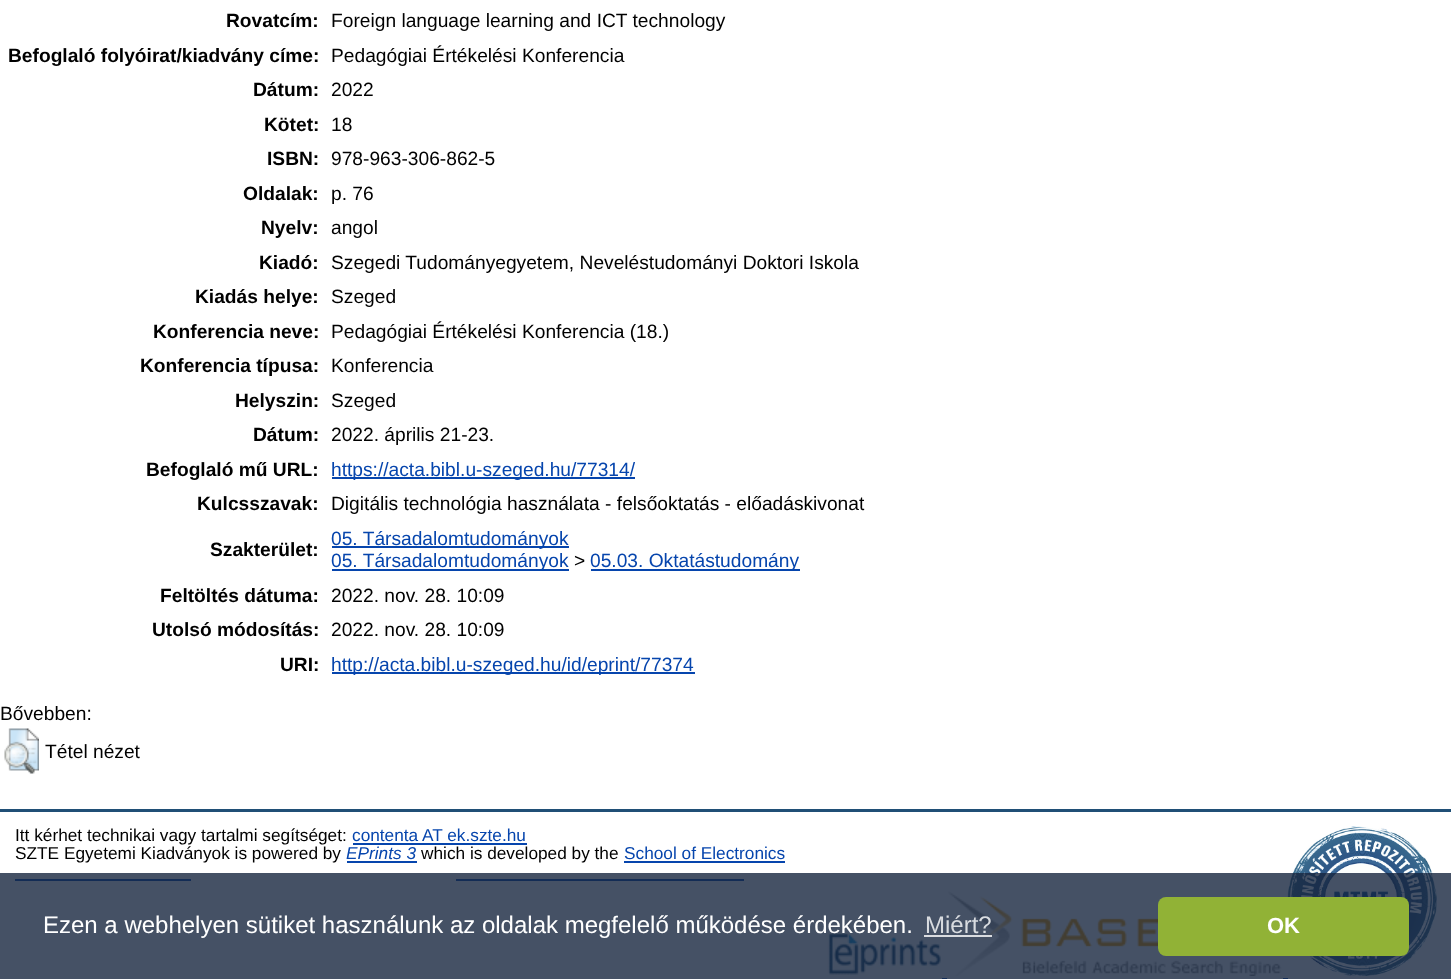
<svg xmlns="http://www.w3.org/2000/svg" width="1451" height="979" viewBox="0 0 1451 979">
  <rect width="100%" height="100%" fill="#ffffff"/>
  <text x="226" y="27" font-family="Liberation Sans" font-size="19.2" font-weight="bold" fill="#000000">Rovatcím:</text>
  <text x="331" y="27" font-family="Liberation Sans" font-size="19.2" fill="#000000">Foreign language learning and ICT technology</text>
  <text x="8" y="62" font-family="Liberation Sans" font-size="19.2" font-weight="bold" fill="#000000">Befoglaló folyóirat/kiadvány címe:</text>
  <text x="331" y="62" font-family="Liberation Sans" font-size="19.2" fill="#000000">Pedagógiai Értékelési Konferencia</text>
  <text x="253" y="96" font-family="Liberation Sans" font-size="19.2" font-weight="bold" fill="#000000">Dátum:</text>
  <text x="331" y="96" font-family="Liberation Sans" font-size="19.2" fill="#000000">2022</text>
  <text x="264" y="131" font-family="Liberation Sans" font-size="19.2" font-weight="bold" fill="#000000">Kötet:</text>
  <text x="331" y="131" font-family="Liberation Sans" font-size="19.2" fill="#000000">18</text>
  <text x="267" y="165" font-family="Liberation Sans" font-size="19.2" font-weight="bold" fill="#000000">ISBN:</text>
  <text x="331" y="165" font-family="Liberation Sans" font-size="19.2" fill="#000000">978-963-306-862-5</text>
  <text x="243" y="200" font-family="Liberation Sans" font-size="19.2" font-weight="bold" fill="#000000">Oldalak:</text>
  <text x="331" y="200" font-family="Liberation Sans" font-size="19.2" fill="#000000">p. 76</text>
  <text x="261" y="234" font-family="Liberation Sans" font-size="19.2" font-weight="bold" fill="#000000">Nyelv:</text>
  <text x="331" y="234" font-family="Liberation Sans" font-size="19.2" fill="#000000">angol</text>
  <text x="259" y="269" font-family="Liberation Sans" font-size="19.2" font-weight="bold" fill="#000000">Kiadó:</text>
  <text x="331" y="269" font-family="Liberation Sans" font-size="19.2" fill="#000000">Szegedi Tudományegyetem, Neveléstudományi Doktori Iskola</text>
  <text x="195" y="303" font-family="Liberation Sans" font-size="19.2" font-weight="bold" fill="#000000">Kiadás helye:</text>
  <text x="331" y="303" font-family="Liberation Sans" font-size="19.2" fill="#000000">Szeged</text>
  <text x="153" y="338" font-family="Liberation Sans" font-size="19.2" font-weight="bold" fill="#000000">Konferencia neve:</text>
  <text x="331" y="338" font-family="Liberation Sans" font-size="19.2" fill="#000000">Pedagógiai Értékelési Konferencia (18.)</text>
  <text x="140" y="372" font-family="Liberation Sans" font-size="19.2" font-weight="bold" fill="#000000">Konferencia típusa:</text>
  <text x="331" y="372" font-family="Liberation Sans" font-size="19.2" fill="#000000">Konferencia</text>
  <text x="235" y="407" font-family="Liberation Sans" font-size="19.2" font-weight="bold" fill="#000000">Helyszin:</text>
  <text x="331" y="407" font-family="Liberation Sans" font-size="19.2" fill="#000000">Szeged</text>
  <text x="253" y="441" font-family="Liberation Sans" font-size="19.2" font-weight="bold" fill="#000000">Dátum:</text>
  <text x="331" y="441" font-family="Liberation Sans" font-size="19.2" fill="#000000">2022. április 21-23.</text>
  <text x="146" y="476" font-family="Liberation Sans" font-size="19.2" font-weight="bold" fill="#000000">Befoglaló mű URL:</text>
  <rect x="332" y="477" width="303" height="2" fill="#0645ad"/>
  <text x="331" y="476" font-family="Liberation Sans" font-size="19.2" fill="#0645ad">https://acta.bibl.u-szeged.hu/77314/</text>
  <text x="197" y="510" font-family="Liberation Sans" font-size="19.2" font-weight="bold" fill="#000000">Kulcsszavak:</text>
  <text x="331" y="510" font-family="Liberation Sans" font-size="19.2" fill="#000000">Digitális technológia használata - felsőoktatás - előadáskivonat</text>
  <text x="210" y="556" font-family="Liberation Sans" font-size="19.2" font-weight="bold" fill="#000000">Szakterület:</text>
  <rect x="332" y="546" width="237" height="2" fill="#0645ad"/>
  <text x="331" y="545" font-family="Liberation Sans" font-size="19.2" fill="#0645ad">05. Társadalomtudományok</text>
  <rect x="332" y="569" width="237" height="2" fill="#0645ad"/>
  <text x="331" y="567" font-family="Liberation Sans" font-size="19.2" fill="#0645ad">05. Társadalomtudományok</text>
  <text x="574" y="567" font-family="Liberation Sans" font-size="19.2" fill="#000000">&gt;</text>
  <rect x="591" y="569" width="209" height="2" fill="#0645ad"/>
  <text x="590" y="567" font-family="Liberation Sans" font-size="19.2" fill="#0645ad">05.03. Oktatástudomány</text>
  <text x="160" y="602" font-family="Liberation Sans" font-size="19.2" font-weight="bold" fill="#000000">Feltöltés dátuma:</text>
  <text x="331" y="602" font-family="Liberation Sans" font-size="19.2" fill="#000000">2022. nov. 28. 10:09</text>
  <text x="152" y="636" font-family="Liberation Sans" font-size="19.2" font-weight="bold" fill="#000000">Utolsó módosítás:</text>
  <text x="331" y="636" font-family="Liberation Sans" font-size="19.2" fill="#000000">2022. nov. 28. 10:09</text>
  <text x="280" y="671" font-family="Liberation Sans" font-size="19.2" font-weight="bold" fill="#000000">URI:</text>
  <rect x="332" y="672" width="363" height="2" fill="#0645ad"/>
  <text x="331" y="671" font-family="Liberation Sans" font-size="19.2" fill="#0645ad">http://acta.bibl.u-szeged.hu/id/eprint/77374</text>
  <text x="0" y="720" font-family="Liberation Sans" font-size="19.2" fill="#000000">Bővebben:</text>
  <image x="4" y="728" width="35" height="46" href="img1.png"/>
  <text x="45" y="758" font-family="Liberation Sans" font-size="19.2" fill="#000000">Tétel nézet</text>
  <rect x="0" y="809" width="1451" height="3" fill="#204f76"/>
  <text x="15" y="841" font-family="Liberation Sans" font-size="17.25" fill="#000000">Itt kérhet technikai vagy tartalmi segítséget:</text>
  <text x="352" y="841" font-family="Liberation Sans" font-size="17.25" fill="#0645ad">contenta AT ek.szte.hu</text>
  <rect x="353" y="843" width="174" height="2" fill="#0645ad"/>
  <text x="15" y="859" font-family="Liberation Sans" font-size="17.25" fill="#000000">SZTE Egyetemi Kiadványok is powered by</text>
  <text x="346" y="859" font-family="Liberation Sans" font-size="17.25" font-style="italic" fill="#0645ad">EPrints 3</text>
  <rect x="347" y="861" width="70" height="2" fill="#0645ad"/>
  <text x="421" y="859" font-family="Liberation Sans" font-size="17.25" fill="#000000">which is developed by the</text>
  <text x="624" y="859" font-family="Liberation Sans" font-size="17.25" fill="#0645ad">School of Electronics</text>
  <rect x="624" y="861" width="161" height="2" fill="#0645ad"/>
  <rect x="15" y="879" width="176" height="2" fill="#0645ad"/>
  <rect x="456" y="879" width="288" height="2" fill="#0645ad"/>
  <image x="827" y="933" width="114" height="43" href="img2.png"/>
  <image x="948" y="891" width="334" height="85" href="img3.png"/>
  <image x="1287" y="826" width="150" height="150" href="img4.png"/>
  <rect x="942" y="978" width="5" height="1" fill="#0645ad"/>
  <rect x="1283" y="978" width="5" height="1" fill="#0645ad"/>
  <rect x="0" y="873" width="1451" height="106" fill="#16263f" fill-opacity="0.8"/>
  <text x="43" y="933" font-family="Liberation Sans" font-size="24" fill="#ffffff">Ezen a webhelyen sütiket használunk az oldalak megfelelő működése érdekében.</text>
  <text x="925" y="933" font-family="Liberation Sans" font-size="24" fill="#d9dce0">Miért?</text>
  <rect x="924" y="935" width="68" height="2" fill="#ffffff" fill-opacity="0.8"/>
  <rect x="1158" y="897" width="251" height="59" rx="8" fill="#91b236"/>
  <text x="1267" y="933" font-family="Liberation Sans" font-size="22" font-weight="bold" fill="#ffffff">OK</text>
</svg>
